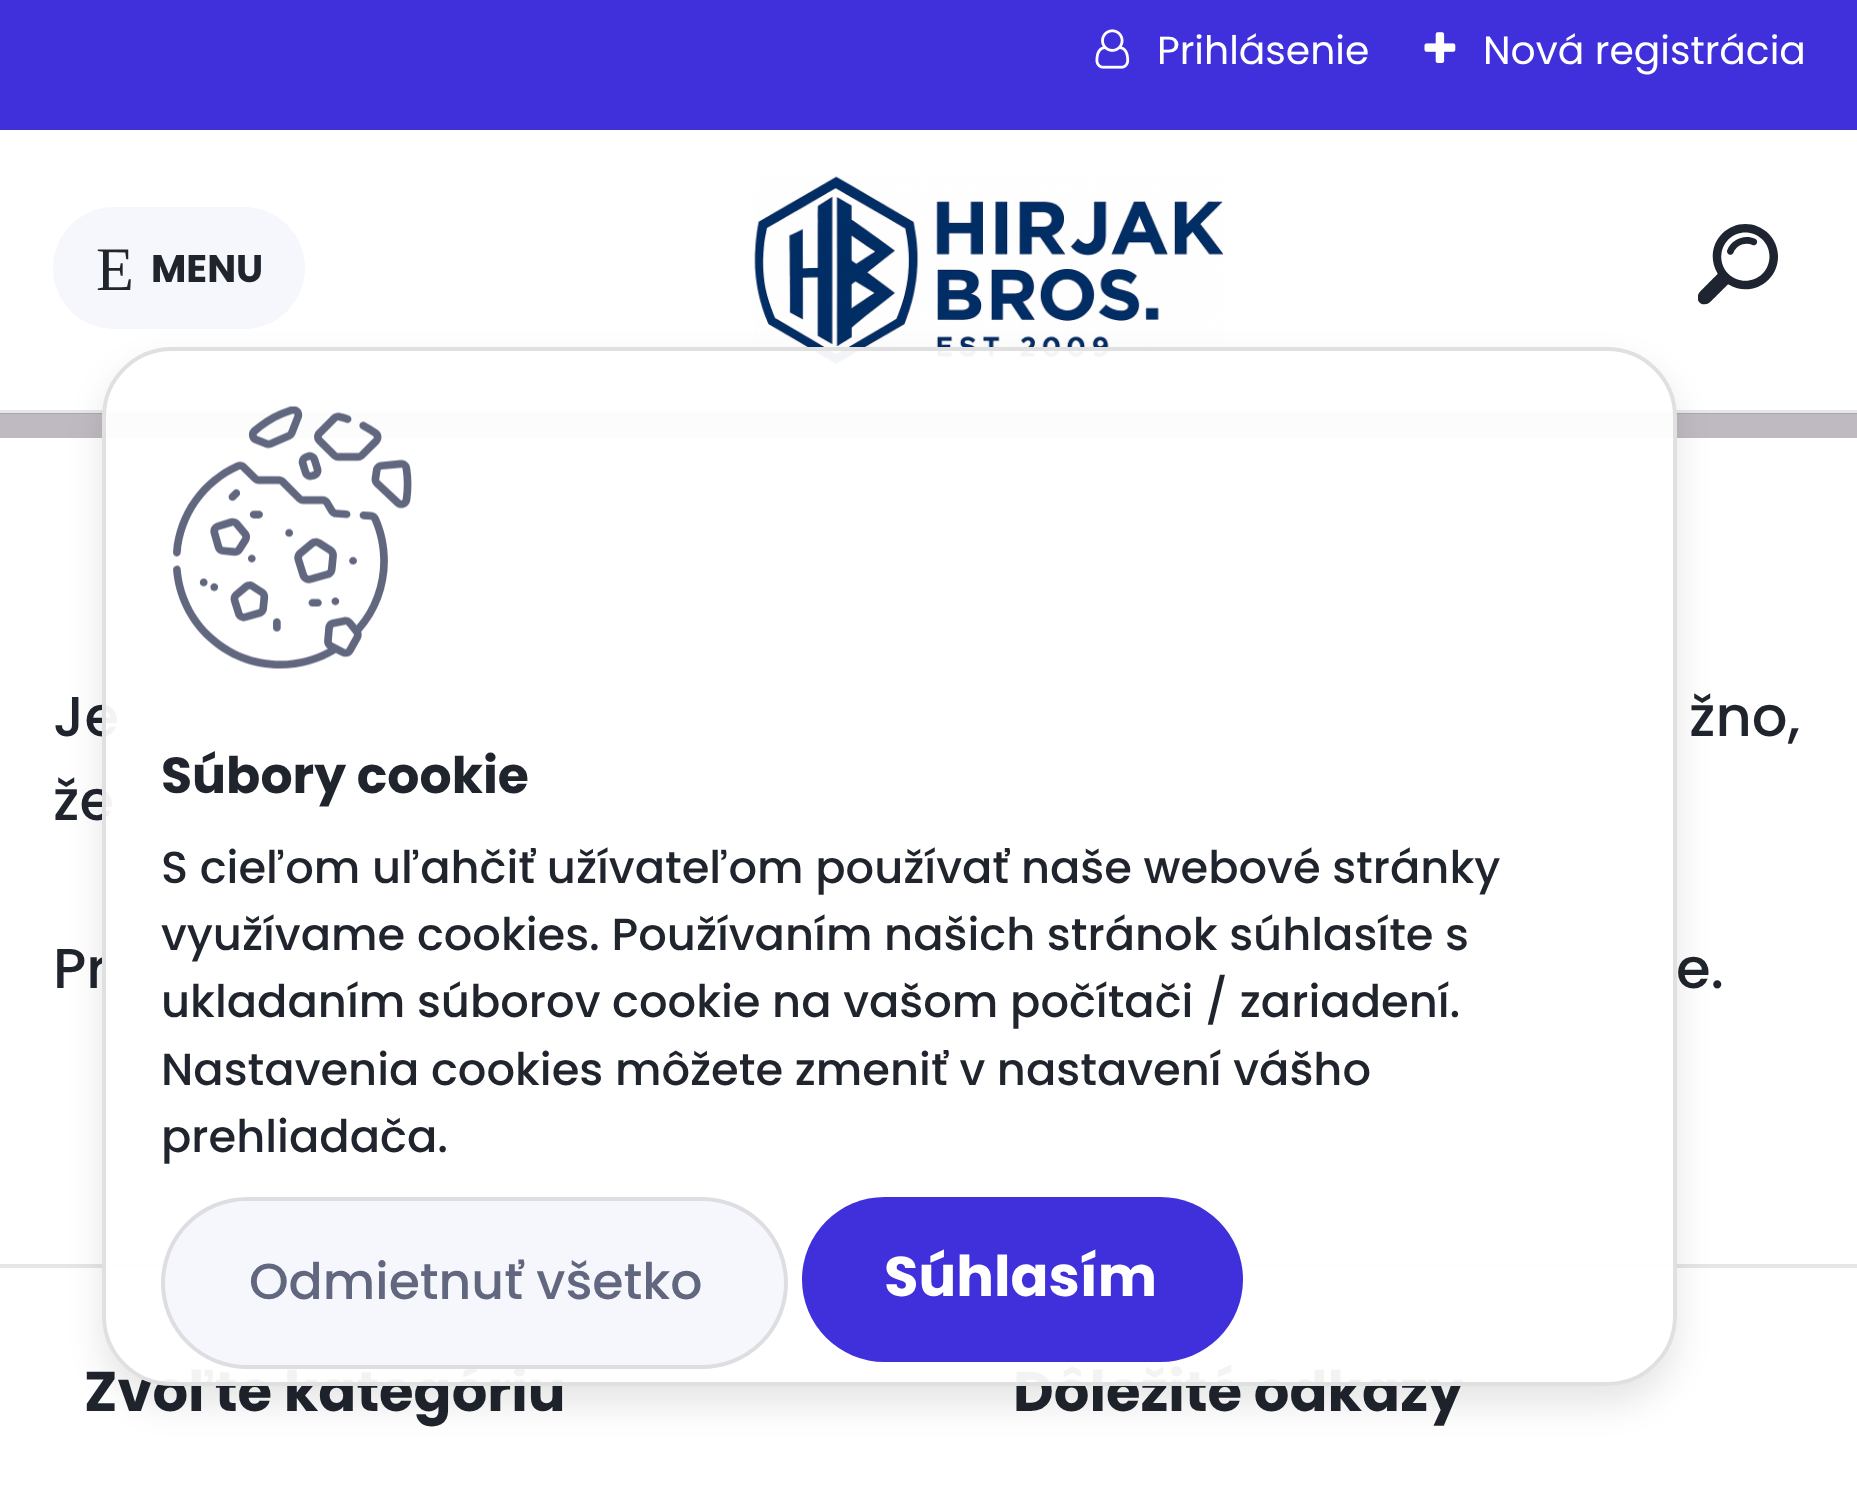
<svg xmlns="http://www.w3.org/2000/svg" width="1857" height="1487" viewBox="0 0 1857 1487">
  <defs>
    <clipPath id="clip1"><path d="M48 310H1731V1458H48ZM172 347H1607C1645.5 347 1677 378.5 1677 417V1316C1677 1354.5 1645.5 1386 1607 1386H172C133.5 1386 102 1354.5 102 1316V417C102 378.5 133.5 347 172 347Z" clip-rule="evenodd"/></clipPath>
    <filter id="blur1" x="-50%" y="-200%" width="200%" height="500%"><feGaussianBlur stdDeviation="17.5"/></filter>
  </defs>
  <rect width="100%" height="100%" fill="#ffffff"/>
  <rect x="0" y="0" width="1857" height="130" fill="#4030dc"/>
  <image x="1095" y="29" width="35" height="40" href="img1.png"/>
  <text x="1157" y="64" font-family="Poppins" font-size="39.25" fill="#ffffff">Prihlásenie</text>
  <image x="1424" y="32" width="32" height="31" href="img2.png"/>
  <text x="1483" y="64" font-family="Poppins" font-size="39.25" fill="#ffffff">Nová registrácia</text>
  <rect x="0" y="410" width="1857" height="3" fill="#e6e6e6"/>
  <rect x="0" y="414" width="1857" height="24" fill="#bfbac1"/>
  <rect x="0" y="413" width="1857" height="1" fill="#aca7ae"/>
  <rect x="53" y="207" width="252" height="122" rx="61" fill="#f6f7fc"/>
  <text x="96" y="290" font-family="Liberation Serif" font-size="62" fill="#1f242d">E</text>
  <text x="151" y="282" font-family="Poppins" font-size="38.5" font-weight="bold" fill="#1f242d">MENU</text>
  <image x="754" y="176" width="470" height="189" href="img3.png"/>
  <image x="1698" y="224" width="80" height="81" href="img4.png"/>
  <text x="53" y="736" font-family="Poppins" font-size="56" font-weight="500" fill="#1f242d">Je</text>
  <text x="1689" y="736" font-family="Poppins" font-size="56" font-weight="500" fill="#1f242d">žno,</text>
  <text x="53" y="820" font-family="Poppins" font-size="56" font-weight="500" fill="#1f242d">že</text>
  <text x="53" y="988" font-family="Poppins" font-size="56" font-weight="500" fill="#1f242d">Pr</text>
  <text x="1676" y="988" font-family="Poppins" font-size="56" font-weight="500" fill="#1f242d">e.</text>
  <rect x="0" y="1264" width="1857" height="4" fill="#e6e6e6"/>
  <text x="84" y="1411" font-family="Poppins" font-size="56" font-weight="bold" fill="#1f242d">Zvoľte kategóriu</text>
  <text x="1013" y="1411" font-family="Poppins" font-size="56" font-weight="bold" fill="#1f242d">Dôležité odkazy</text>
  <g clip-path="url(#clip1)">
    <rect x="102" y="364" width="1575" height="1040" rx="70" fill="#000000" fill-opacity="0.1" filter="url(#blur1)"/>
  </g>
  <rect x="104" y="349" width="1571" height="1035" rx="68" fill="#ffffff" fill-opacity="0.95" stroke="#e0e0e0" stroke-width="4"/>
  <image x="173" y="406" width="239" height="263" href="img5.png"/>
  <text x="161" y="793" font-family="Poppins" font-size="50.5" font-weight="bold" fill="#1f242d">Súbory cookie</text>
  <text x="161" y="883" font-family="Poppins" font-size="44.8" font-weight="500" fill="#1f242d">S cieľom uľahčiť užívateľom používať naše webové stránky</text>
  <text x="161" y="950" font-family="Poppins" font-size="44.8" font-weight="500" fill="#1f242d">využívame cookies. Používaním našich stránok súhlasíte s</text>
  <text x="161" y="1017" font-family="Poppins" font-size="44.8" font-weight="500" fill="#1f242d">ukladaním súborov cookie na vašom počítači / zariadení.</text>
  <text x="161" y="1085" font-family="Poppins" font-size="44.8" font-weight="500" fill="#1f242d">Nastavenia cookies môžete zmeniť v nastavení vášho</text>
  <text x="161" y="1152" font-family="Poppins" font-size="44.8" font-weight="500" fill="#1f242d">prehliadača.</text>
  <rect x="161" y="1197" width="627" height="172" rx="86" fill="#f6f7fc"/>
  <rect x="163" y="1199" width="623" height="168" rx="84" fill="none" stroke="#000000" stroke-opacity="0.1" stroke-width="4"/>
  <text x="249" y="1299" font-family="Poppins" font-size="50.5" font-weight="500" fill="#626780">Odmietnuť všetko</text>
  <rect x="802" y="1197" width="441" height="165" rx="82.5" fill="#4030dc"/>
  <text x="884" y="1296" font-family="Poppins" font-size="56" font-weight="bold" fill="#ffffff">Súhlasím</text>
</svg>
